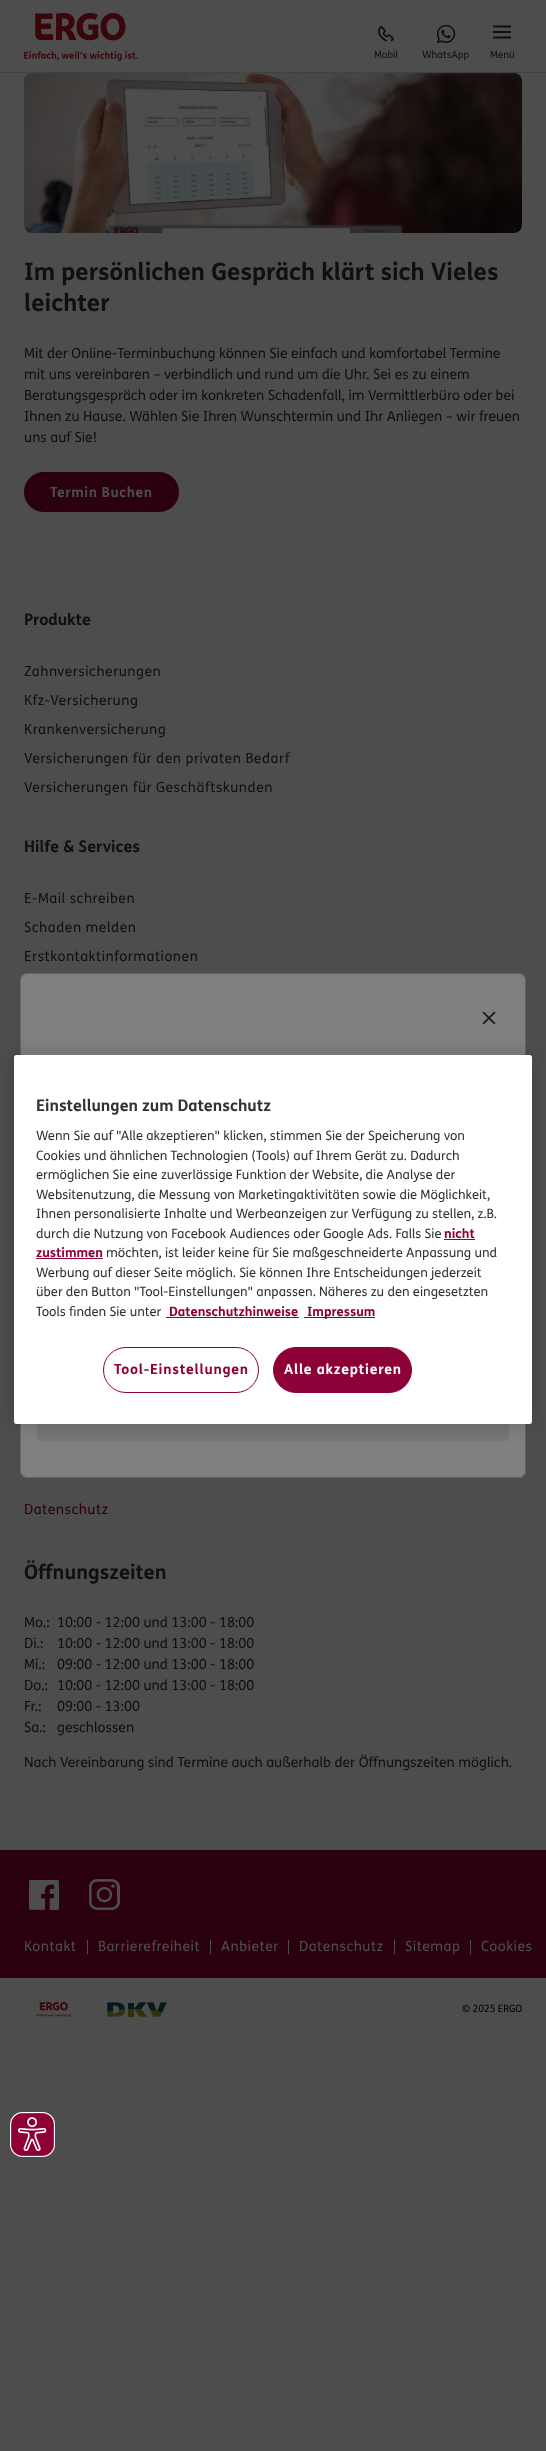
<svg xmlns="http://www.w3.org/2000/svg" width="546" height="2451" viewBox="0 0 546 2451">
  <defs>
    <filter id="blur1" x="-50%" y="-200%" width="200%" height="500%"><feGaussianBlur stdDeviation="9"/></filter>
  </defs>
  <rect width="100%" height="100%" fill="#4d4d4d"/>
  <rect x="517" y="13" width="1" height="3" fill="#414141"/>
  <image x="24" y="13" width="114" height="48" href="img1.png"/>
  <image x="378" y="26" width="16" height="16" href="img2.png"/>
  <text x="374" y="58" font-family="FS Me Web" font-size="10" fill="#101010">Mobil</text>
  <image x="436" y="24" width="20" height="20" href="img3.png"/>
  <text x="422" y="58" font-family="FS Me Web" font-size="10" fill="#101010">WhatsApp</text>
  <image x="493" y="25" width="18" height="14" href="img4.png"/>
  <text x="490" y="58" font-family="FS Me Web" font-size="10" fill="#101010">Menü</text>
  <rect x="0" y="72" width="546" height="1" fill="#414141"/>
  <image x="24" y="73" width="498" height="160" href="img5.png"/>
  <text x="24" y="280" font-family="FS Me Web" font-size="24" font-weight="bold" fill="#101010">Im persönlichen Gespräch klärt sich Vieles</text>
  <text x="24" y="311" font-family="FS Me Web" font-size="24" font-weight="bold" fill="#101010">leichter</text>
  <text x="24" y="358" font-family="FS Me Web" font-size="14" fill="#101010">Mit der Online-Terminbuchung können Sie einfach und komfortabel Termine</text>
  <text x="24" y="379" font-family="FS Me Web" font-size="14" fill="#101010">mit uns vereinbaren – verbindlich und rund um die Uhr. Sei es zu einem</text>
  <text x="24" y="400" font-family="FS Me Web" font-size="14" fill="#101010">Beratungsgespräch oder im konkreten Schadenfall, im Vermittlerbüro oder bei</text>
  <text x="24" y="421" font-family="FS Me Web" font-size="14" fill="#101010">Ihnen zu Hause. Wählen Sie Ihren Wunschtermin und Ihr Anliegen – wir freuen</text>
  <text x="24" y="442" font-family="FS Me Web" font-size="14" fill="#101010">uns auf Sie!</text>
  <rect x="25" y="473" width="153" height="38" rx="19" fill="#2b0011" stroke="#2b0011" stroke-width="2"/>
  <text x="50" y="497" font-family="FS Me Web" font-size="14" font-weight="bold" letter-spacing="0.5" fill="#4d4d4d">Termin Buchen</text>
  <text x="24" y="625" font-family="FS Me Web" font-size="16" font-weight="bold" fill="#101010">Produkte</text>
  <text x="24" y="676" font-family="FS Me Web" font-size="14" letter-spacing="0.5" fill="#101010">Zahnversicherungen</text>
  <text x="24" y="705" font-family="FS Me Web" font-size="14" letter-spacing="0.5" fill="#101010">Kfz-Versicherung</text>
  <text x="24" y="734" font-family="FS Me Web" font-size="14" letter-spacing="0.5" fill="#101010">Krankenversicherung</text>
  <text x="24" y="763" font-family="FS Me Web" font-size="14" letter-spacing="0.5" fill="#101010">Versicherungen für den privaten Bedarf</text>
  <text x="24" y="792" font-family="FS Me Web" font-size="14" letter-spacing="0.5" fill="#101010">Versicherungen für Geschäftskunden</text>
  <text x="24" y="852" font-family="FS Me Web" font-size="16" font-weight="bold" fill="#101010">Hilfe &amp; Services</text>
  <text x="24" y="903" font-family="FS Me Web" font-size="14" letter-spacing="0.5" fill="#101010">E-Mail schreiben</text>
  <text x="24" y="932" font-family="FS Me Web" font-size="14" letter-spacing="0.5" fill="#101010">Schaden melden</text>
  <text x="24" y="961" font-family="FS Me Web" font-size="14" letter-spacing="0.5" fill="#101010">Erstkontaktinformationen</text>
  <text x="24" y="1514" font-family="FS Me Web" font-size="14" letter-spacing="0.5" fill="#2b0011">Datenschutz</text>
  <text x="24" y="1579" font-family="FS Me Web" font-size="20" font-weight="bold" fill="#101010">Öffnungszeiten</text>
  <text x="24" y="1627" font-family="FS Me Web" font-size="14" fill="#101010">Mo.:</text>
  <text x="57" y="1627" font-family="FS Me Web" font-size="14" fill="#101010">10:00 - 12:00 und 13:00 - 18:00</text>
  <text x="24" y="1648" font-family="FS Me Web" font-size="14" fill="#101010">Di.:</text>
  <text x="57" y="1648" font-family="FS Me Web" font-size="14" fill="#101010">10:00 - 12:00 und 13:00 - 18:00</text>
  <text x="24" y="1669" font-family="FS Me Web" font-size="14" fill="#101010">Mi.:</text>
  <text x="57" y="1669" font-family="FS Me Web" font-size="14" fill="#101010">09:00 - 12:00 und 13:00 - 18:00</text>
  <text x="24" y="1690" font-family="FS Me Web" font-size="14" fill="#101010">Do.:</text>
  <text x="57" y="1690" font-family="FS Me Web" font-size="14" fill="#101010">10:00 - 12:00 und 13:00 - 18:00</text>
  <text x="24" y="1711" font-family="FS Me Web" font-size="14" fill="#101010">Fr.:</text>
  <text x="57" y="1711" font-family="FS Me Web" font-size="14" fill="#101010">09:00 - 13:00</text>
  <text x="24" y="1732" font-family="FS Me Web" font-size="14" fill="#101010">Sa.:</text>
  <text x="57" y="1732" font-family="FS Me Web" font-size="14" fill="#101010">geschlossen</text>
  <text x="24" y="1767" font-family="FS Me Web" font-size="14" fill="#101010">Nach Vereinbarung sind Termine auch außerhalb der Öffnungszeiten möglich.</text>
  <rect x="0" y="1850" width="546" height="128" fill="#2b0011"/>
  <image x="29" y="1880" width="30" height="30" href="img6.png"/>
  <image x="89" y="1879" width="32" height="31" href="img7.png"/>
  <rect x="87" y="1940" width="1" height="14" fill="#4d4d4d"/>
  <text x="24" y="1951" font-family="FS Me Web" font-size="14" letter-spacing="0.5" fill="#4d4d4d">Kontakt</text>
  <rect x="210" y="1940" width="1" height="14" fill="#4d4d4d"/>
  <text x="98" y="1951" font-family="FS Me Web" font-size="14" letter-spacing="0.5" fill="#4d4d4d">Barrierefreiheit</text>
  <rect x="288" y="1940" width="1" height="14" fill="#4d4d4d"/>
  <text x="221" y="1951" font-family="FS Me Web" font-size="14" letter-spacing="0.5" fill="#4d4d4d">Anbieter</text>
  <rect x="394" y="1940" width="1" height="14" fill="#4d4d4d"/>
  <text x="299" y="1951" font-family="FS Me Web" font-size="14" letter-spacing="0.5" fill="#4d4d4d">Datenschutz</text>
  <rect x="470" y="1940" width="1" height="14" fill="#4d4d4d"/>
  <text x="405" y="1951" font-family="FS Me Web" font-size="14" letter-spacing="0.5" fill="#4d4d4d">Sitemap</text>
  <text x="481" y="1951" font-family="FS Me Web" font-size="14" letter-spacing="0.5" fill="#4d4d4d">Cookies</text>
  <image x="36" y="2002" width="36" height="15" href="img8.png"/>
  <image x="107" y="2002" width="60" height="15" href="img9.png"/>
  <text x="462" y="2012" font-family="FS Me Web" font-size="10" fill="#000000">© 2025 ERGO</text>
  <path d="M28 973H518C522.5 973 526 976.5 526 981V1053H20V981C20 976.5 23.5 973 28 973Z" fill="#808080"/>
  <path d="M28 973H518C522 973 526 977 526 981V1053H20V981C20 977 24 973 28 973ZM28 974H518C522 974 525 977 525 981V1053H21V981C21 977 24 974 28 974Z" fill="#656364" fill-rule="evenodd"/>
  <image x="482" y="1011" width="14" height="14" href="img10.png"/>
  <path d="M20 1053H526V1470C526 1474.5 522.5 1478 518 1478H28C23.5 1478 20 1474.5 20 1470Z" fill="#808080"/>
  <path d="M20 1053H526V1470C526 1474 522 1478 518 1478H28C24 1478 20 1474 20 1470ZM21 1053H525V1470C525 1474 522 1477 518 1477H28C24 1477 21 1474 21 1470Z" fill="#656364" fill-rule="evenodd"/>
  <rect x="37" y="1131" width="472" height="310" rx="4" fill="#767676"/>
  <rect x="14" y="1055" width="518" height="369" rx="2.5" fill="#000000" fill-opacity="0.2" filter="url(#blur1)"/>
  <rect x="14" y="1055" width="518" height="369" rx="2.5" fill="#ffffff"/>
  <text x="36" y="1111" font-family="FS Me Web" font-size="16" font-weight="bold" fill="#333333">Einstellungen zum Datenschutz</text>
  <text x="36" y="1140" font-family="FS Me Web" font-size="13" fill="#333333">Wenn Sie auf "Alle akzeptieren" klicken, stimmen Sie der Speicherung von</text>
  <text x="36" y="1160" font-family="FS Me Web" font-size="13" fill="#333333">Cookies und ähnlichen Technologien (Tools) auf Ihrem Gerät zu. Dadurch</text>
  <text x="36" y="1179" font-family="FS Me Web" font-size="13" fill="#333333">ermöglichen Sie eine zuverlässige Funktion der Website, die Analyse der</text>
  <text x="36" y="1199" font-family="FS Me Web" font-size="13" fill="#333333">Websitenutzung, die Messung von Marketingaktivitäten sowie die Möglichkeit,</text>
  <text x="36" y="1218" font-family="FS Me Web" font-size="13" fill="#333333">Ihnen personalisierte Inhalte und Werbeanzeigen zur Verfügung zu stellen, z.B.</text>
  <text x="36" y="1238" font-family="FS Me Web" font-size="13" fill="#333333">durch die Nutzung von Facebook Audiences oder Google Ads. Falls Sie</text>
  <text x="444" y="1238" font-family="FS Me Web" font-size="13" font-weight="bold" fill="#8e0038">nicht</text>
  <rect x="444" y="1239" width="31" height="1" fill="#8e0038"/>
  <text x="36" y="1257" font-family="FS Me Web" font-size="13" font-weight="bold" fill="#8e0038">zustimmen</text>
  <rect x="36" y="1258" width="67" height="1" fill="#8e0038"/>
  <text x="106" y="1257" font-family="FS Me Web" font-size="13" fill="#333333">möchten, ist leider keine für Sie maßgeschneiderte Anpassung und</text>
  <text x="36" y="1277" font-family="FS Me Web" font-size="13" fill="#333333">Werbung auf dieser Seite möglich. Sie können Ihre Entscheidungen jederzeit</text>
  <text x="36" y="1296" font-family="FS Me Web" font-size="13" fill="#333333">über den Button "Tool-Einstellungen" anpassen. Näheres zu den eingesetzten</text>
  <text x="36" y="1316" font-family="FS Me Web" font-size="13" fill="#333333">Tools finden Sie unter</text>
  <text x="169" y="1316" font-family="FS Me Web" font-size="13" font-weight="bold" fill="#8e0038">Datenschutzhinweise</text>
  <rect x="166" y="1317" width="133" height="1" fill="#8e0038"/>
  <rect x="304" y="1317" width="71" height="1" fill="#8e0038"/>
  <text x="307" y="1316" font-family="FS Me Web" font-size="13" font-weight="bold" fill="#8e0038">Impressum</text>
  <rect x="103.5" y="1347.5" width="155" height="45" rx="22.5" fill="none" stroke="#8e0038"/>
  <text x="114" y="1374" font-family="FS Me Web" font-size="14" font-weight="bold" letter-spacing="0.75" fill="#8e0038">Tool-Einstellungen</text>
  <rect x="273.5" y="1347.5" width="138" height="45" rx="22.5" fill="#8e0038" stroke="#8e0038"/>
  <text x="284" y="1374" font-family="FS Me Web" font-size="14" font-weight="bold" letter-spacing="0.75" fill="#ffffff">Alle akzeptieren</text>
  <image x="10" y="2112" width="45" height="45" href="img11.png"/>
</svg>
